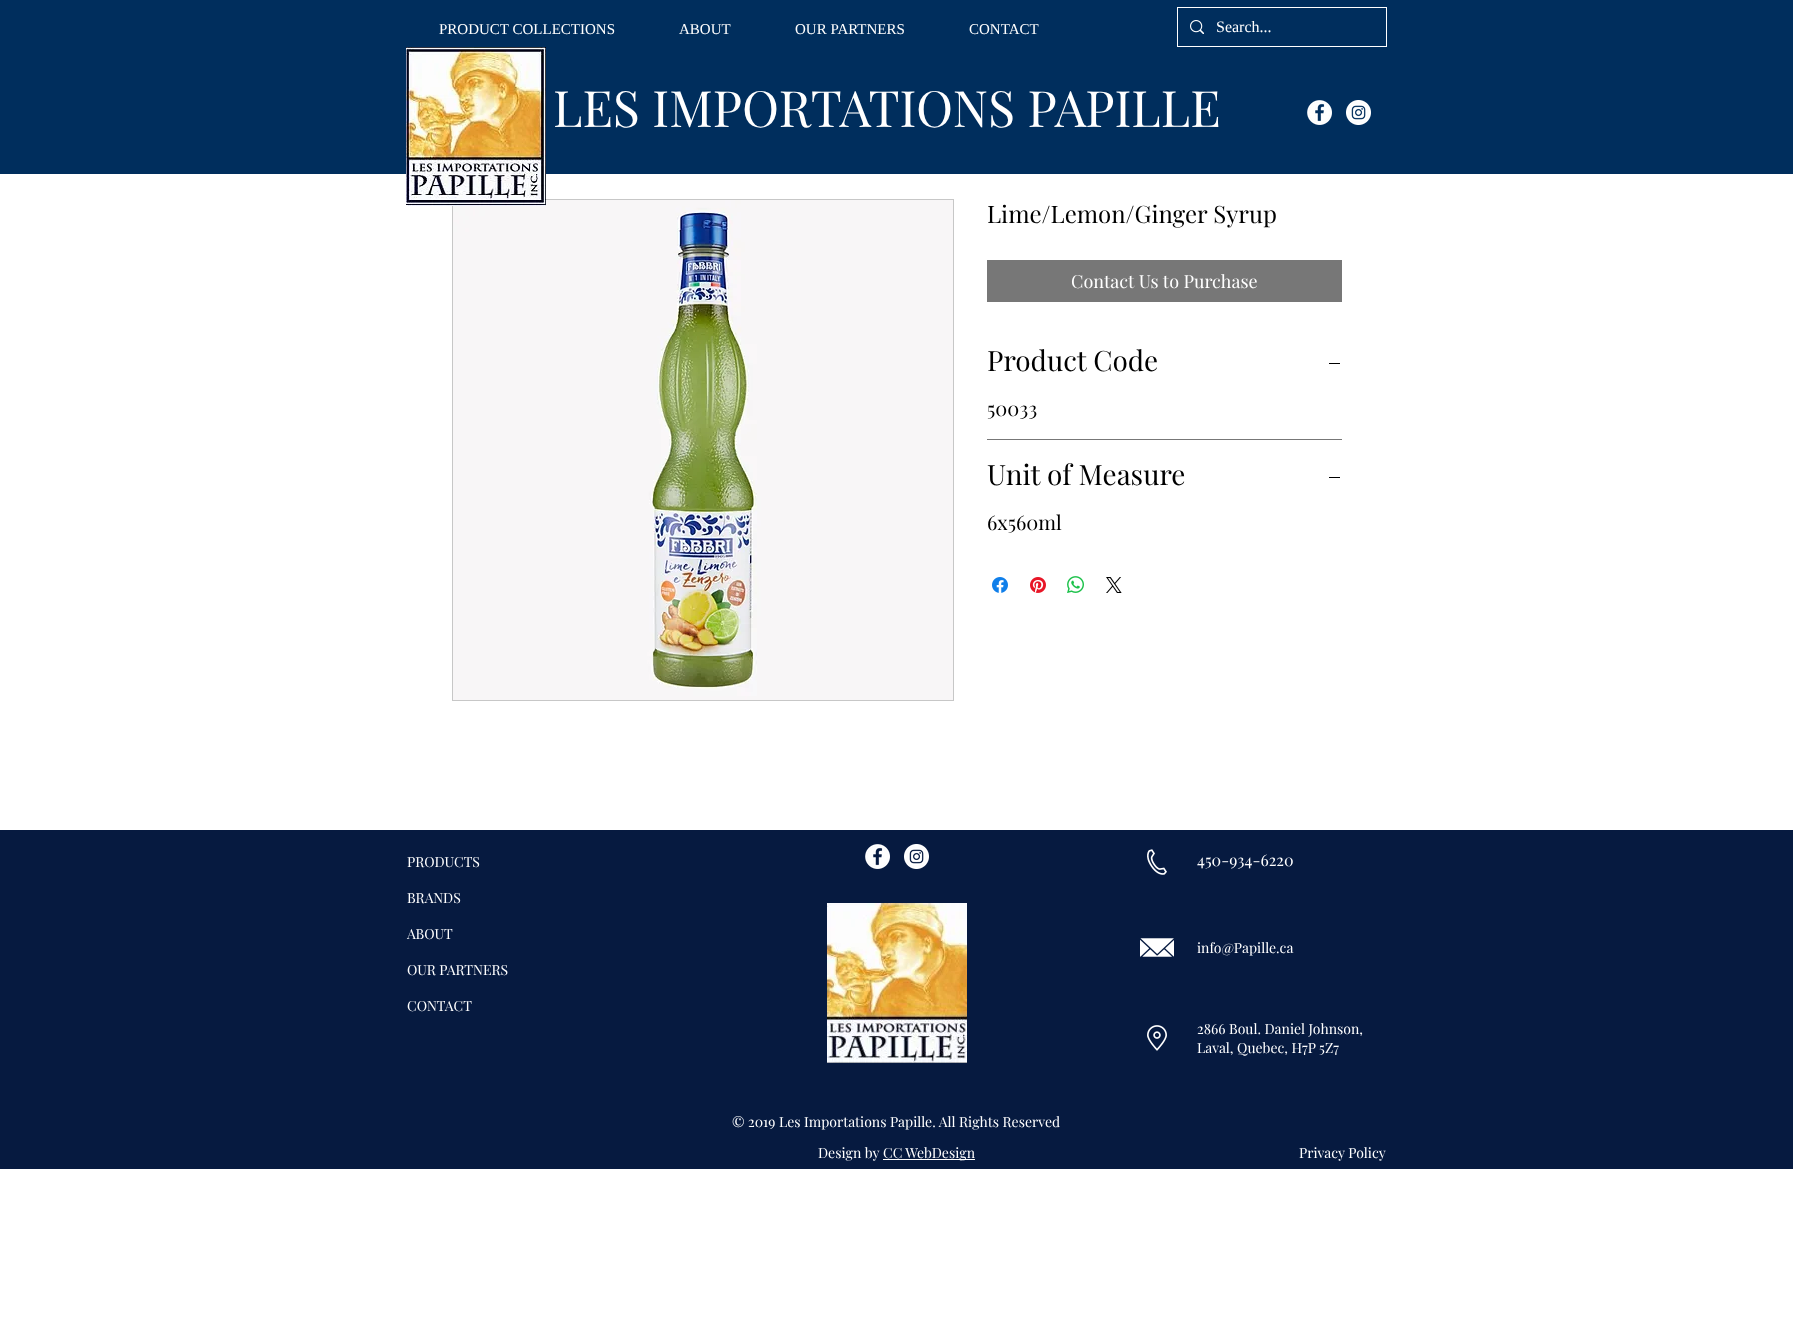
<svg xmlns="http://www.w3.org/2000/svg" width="1793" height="1342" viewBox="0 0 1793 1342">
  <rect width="100%" height="100%" fill="#ffffff"/>
  <rect x="0" y="0" width="1793" height="174" fill="#002e5d"/>
  <text x="439" y="34" font-family="Liberation Serif" font-size="15" fill="#ffffff">PRODUCT COLLECTIONS</text>
  <text x="679" y="34" font-family="Liberation Serif" font-size="15" fill="#ffffff">ABOUT</text>
  <text x="795" y="34" font-family="Liberation Serif" font-size="15" fill="#ffffff">OUR PARTNERS</text>
  <text x="969" y="34" font-family="Liberation Serif" font-size="15" fill="#ffffff">CONTACT</text>
  <rect x="1177.5" y="7.5" width="209" height="39" fill="none" stroke="#ffffff"/>
  <image x="1190" y="20" width="14" height="14" href="img1.png"/>
  <text x="1216" y="32" font-family="Liberation Serif" font-size="16" fill="#ffffff">Search...</text>
  <rect x="452.5" y="199.5" width="501" height="501" fill="none" stroke="#c7c7c7"/>
  <image x="453" y="200" width="500" height="500" href="img5.png"/>
  <image x="406" y="47" width="140" height="159" href="img2.png"/>
  <text x="553" y="127" font-family="Playfair Display" font-size="50" fill="#ffffff">LES IMPORTATIONS PAPILLE</text>
  <image x="1307" y="100" width="25" height="25" href="img3.png"/>
  <image x="1346" y="100" width="25" height="25" href="img4.png"/>
  <text x="987" y="223" font-family="Playfair Display" font-size="24" fill="#000000">Lime/Lemon/Ginger Syrup</text>
  <rect x="987" y="260" width="355" height="42" fill="#777777"/>
  <text x="1071" y="288" font-family="Playfair Display" font-size="18" fill="#ffffff">Contact Us to Purchase</text>
  <rect x="987" y="439" width="355" height="1" fill="#777777"/>
  <text x="987" y="371" font-family="Playfair Display" font-size="28" fill="#000000">Product Code</text>
  <rect x="1329" y="363" width="11" height="1" fill="#000000"/>
  <text x="987" y="416" font-family="Playfair Display" font-size="20" fill="#000000">50033</text>
  <text x="987" y="485" font-family="Playfair Display" font-size="28" fill="#000000">Unit of Measure</text>
  <rect x="1329" y="477" width="11" height="1" fill="#000000"/>
  <text x="987" y="530" font-family="Playfair Display" font-size="20" fill="#000000">6x560ml</text>
  <image x="992" y="577" width="16" height="16" href="img6.png"/>
  <image x="1030" y="577" width="16" height="16" href="img7.png"/>
  <image x="1067" y="576" width="17" height="17" href="img8.png"/>
  <image x="1106" y="577" width="16" height="16" href="img9.png"/>
  <rect x="0" y="830" width="1793" height="339" fill="#061a40"/>
  <text x="407" y="867" font-family="Playfair Display" font-size="14" fill="#ffffff">PRODUCTS</text>
  <text x="407" y="903" font-family="Playfair Display" font-size="14" fill="#ffffff">BRANDS</text>
  <text x="407" y="939" font-family="Playfair Display" font-size="14" fill="#ffffff">ABOUT</text>
  <text x="407" y="975" font-family="Playfair Display" font-size="14" fill="#ffffff">OUR PARTNERS</text>
  <text x="407" y="1011" font-family="Playfair Display" font-size="14" fill="#ffffff">CONTACT</text>
  <image x="865" y="844" width="25" height="25" href="img10.png"/>
  <image x="904" y="844" width="25" height="25" href="img11.png"/>
  <image x="1147" y="849" width="20" height="26" href="img12.png"/>
  <text x="1197" y="866" font-family="Playfair Display" font-size="16" fill="#ffffff">450-934-6220</text>
  <image x="827" y="903" width="140" height="160" href="img13.png"/>
  <image x="1140" y="938" width="34" height="19" href="img14.png"/>
  <text x="1197" y="953" font-family="Playfair Display" font-size="14" fill="#ffffff">info@Papille.ca</text>
  <image x="1147" y="1025" width="20" height="26" href="img15.png"/>
  <text x="1197" y="1034" font-family="Playfair Display" font-size="14" fill="#ffffff">2866 Boul. Daniel Johnson,</text>
  <text x="1197" y="1053" font-family="Playfair Display" font-size="14" fill="#ffffff">Laval, Quebec, H7P 5Z7</text>
  <text x="732" y="1127" font-family="Playfair Display" font-size="14" fill="#ffffff">© 2019 Les Importations Papille. All Rights Reserved</text>
  <text x="818" y="1158" font-family="Playfair Display" font-size="14" fill="#ffffff">Design by</text>
  <rect x="883" y="1159" width="92" height="1" fill="#ffffff"/>
  <text x="883" y="1158" font-family="Playfair Display" font-size="14" fill="#ffffff">CC WebDesign</text>
  <text x="1299" y="1158" font-family="Playfair Display" font-size="14" fill="#ffffff">Privacy Policy</text>
</svg>
